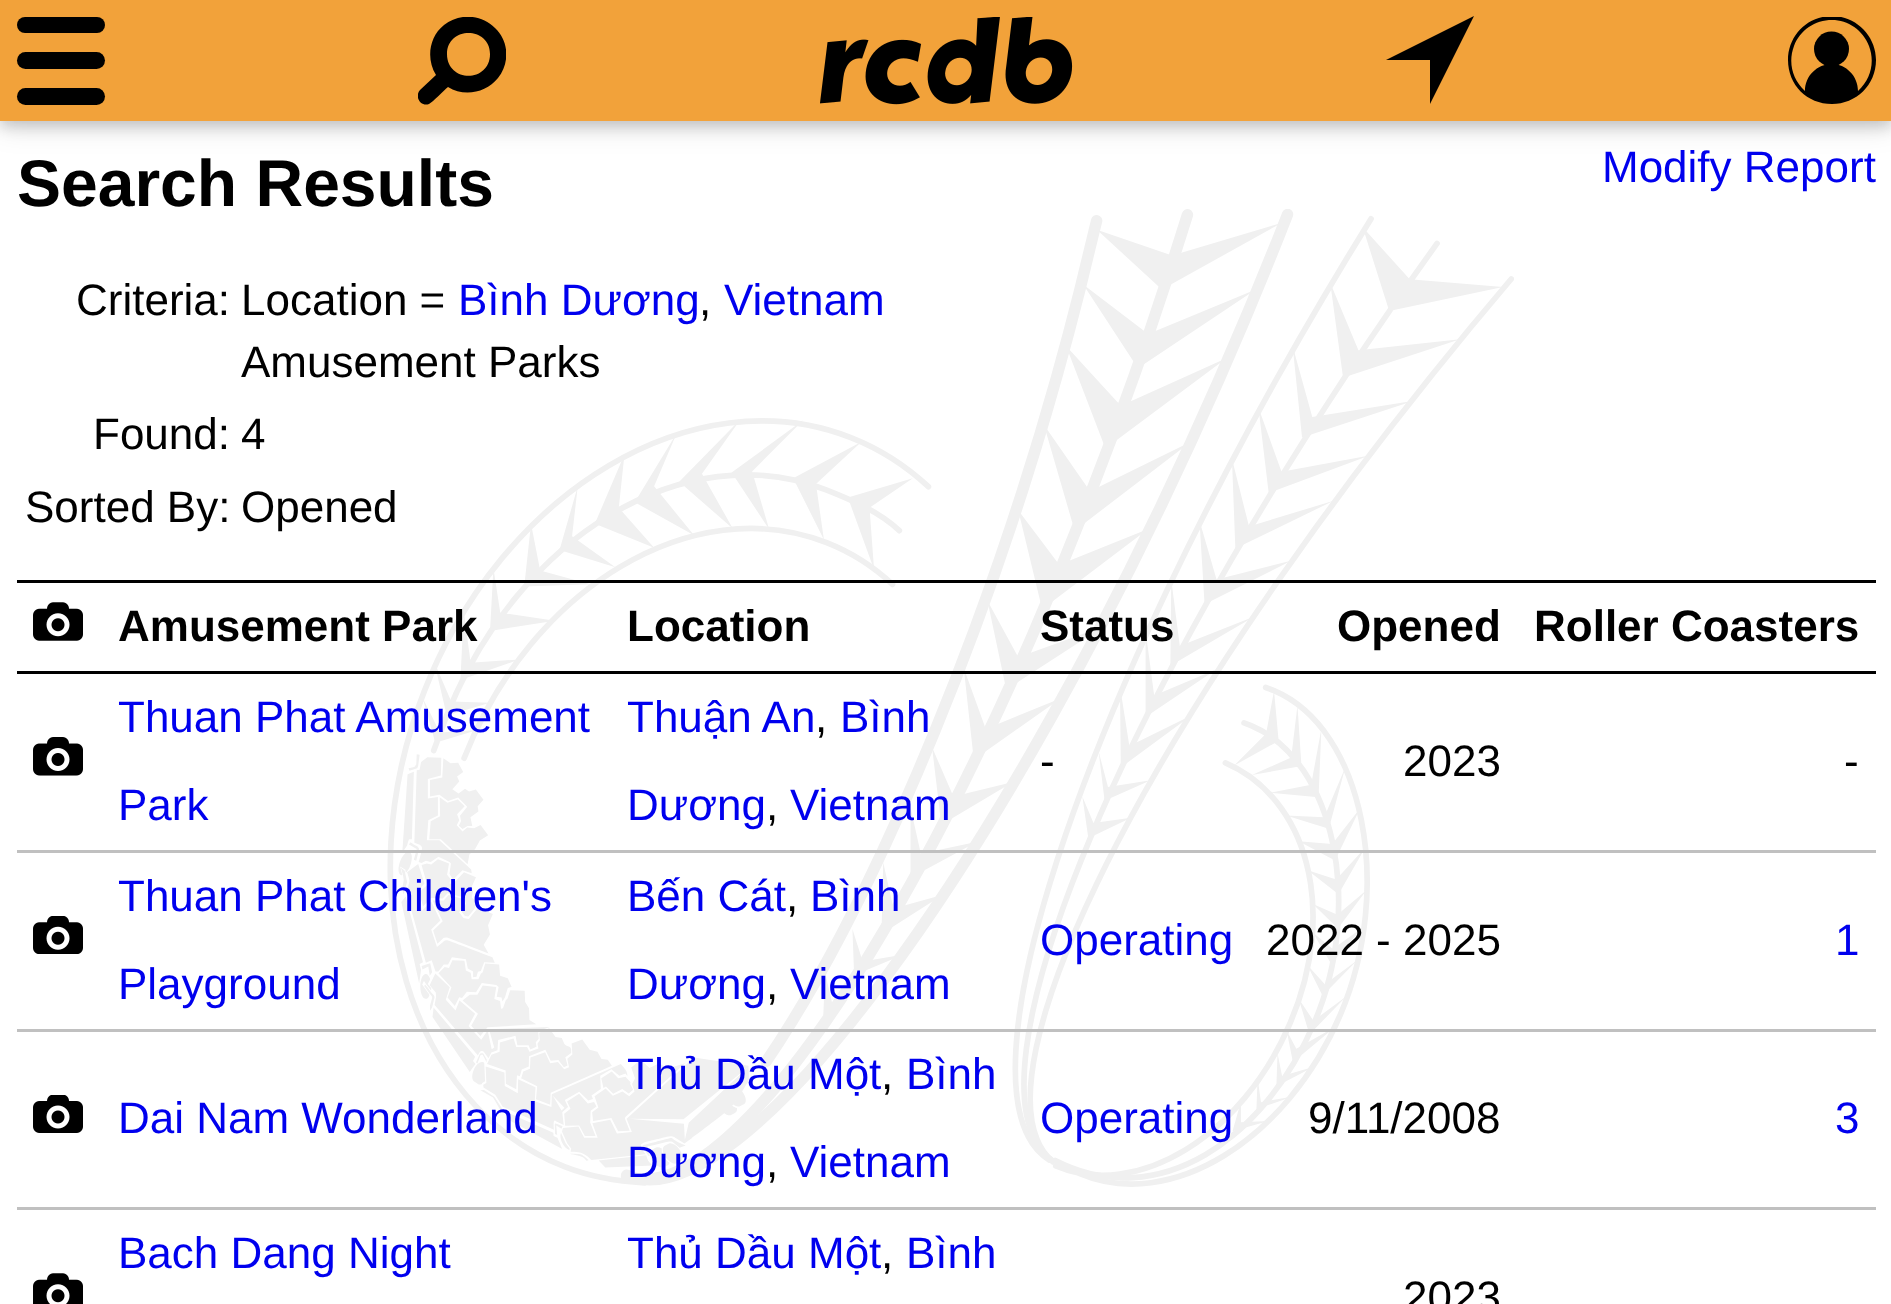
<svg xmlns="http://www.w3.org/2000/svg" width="1891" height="1304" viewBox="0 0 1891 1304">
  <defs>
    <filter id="blur1" x="-50%" y="-200%" width="200%" height="500%"><feGaussianBlur stdDeviation="14"/></filter>
    <filter id="blur2" x="-50%" y="-200%" width="200%" height="500%"><feGaussianBlur stdDeviation="7"/></filter>
    <clipPath id="clip1"><rect x="418" y="17" width="88" height="88"/></clipPath>
    <clipPath id="clip2"><rect x="1788" y="17" width="88" height="88"/></clipPath>
  </defs>
  <rect width="100%" height="100%" fill="#ffffff"/>
  <rect x="0" y="6" width="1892" height="121" fill="#000000" fill-opacity="0.12" filter="url(#blur1)"/>
  <rect x="0" y="6" width="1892" height="121" fill="#000000" fill-opacity="0.16" filter="url(#blur2)"/>
  <rect x="0" y="0" width="1891" height="121" fill="#f2a23a"/>
  <rect x="17" y="17" width="88" height="16" rx="8" fill="#000000"/>
  <rect x="17" y="52" width="88" height="17" rx="8.5" fill="#000000"/>
  <rect x="17" y="88" width="88" height="17" rx="8.5" fill="#000000"/>
  <g clip-path="url(#clip1)">
    <path d="M420 90C414 97 421 107 429 104C433 102 444 90 448 87C464 97 486 93 498 78C510 63 509 41 495 28C481 14 459 13 444 25C429 37 426 59 436 75ZM490 54C490 83 447 83 447 54C447 26 490 26 490 54" fill="#000000"/>
  </g>
  <image x="820" y="17" width="253" height="88" href="img1.png"/>
  <path d="M1474 16L1430 104V60H1386Z" fill="#000000"/>
  <g clip-path="url(#clip2)">
    <path d="M1832 16C1807 16 1788 36 1788 60C1788 85 1807 104 1832 104C1856 104 1876 85 1876 60C1876 36 1856 16 1832 16ZM1805 91C1792 79 1788 62 1794 46C1800 30 1815 20 1832 20C1848 20 1863 30 1869 46C1875 62 1871 79 1858 91C1858 76 1846 64 1832 64C1817 64 1805 76 1805 91Z" fill="#000000"/>
  </g>
  <circle cx="1831.5" cy="49" r="17.5" fill="#000000"/>
  <text x="17" y="206" font-family="Liberation Sans" font-size="66" font-weight="bold" fill="#000000">Search Results</text>
  <text x="1602" y="182" font-family="Liberation Sans" font-size="44" fill="#0000ee">Modify Report</text>
  <text x="76" y="315" font-family="Liberation Sans" font-size="44" fill="#000000">Criteria:</text>
  <image x="387" y="209" width="1127" height="978" href="img7.png"/>
  <text x="241" y="315" font-family="Liberation Sans" font-size="44" fill="#000000">Location =</text>
  <text x="458" y="315" font-family="Liberation Sans" font-size="44" fill="#0000ee">Bình Dương</text>
  <text x="699" y="315" font-family="Liberation Sans" font-size="44" fill="#000000">,</text>
  <text x="724" y="315" font-family="Liberation Sans" font-size="44" fill="#0000ee">Vietnam</text>
  <text x="241" y="377" font-family="Liberation Sans" font-size="44" fill="#000000">Amusement Parks</text>
  <text x="93" y="449" font-family="Liberation Sans" font-size="44" fill="#000000">Found:</text>
  <text x="241" y="449" font-family="Liberation Sans" font-size="44" fill="#000000">4</text>
  <text x="25" y="522" font-family="Liberation Sans" font-size="44" fill="#000000">Sorted By:</text>
  <text x="241" y="522" font-family="Liberation Sans" font-size="44" fill="#000000">Opened</text>
  <rect x="17" y="580" width="1859" height="3" fill="#000000"/>
  <rect x="17" y="671" width="1859" height="3" fill="#000000"/>
  <image x="33" y="602" width="50" height="39" href="img2.png"/>
  <text x="118" y="641" font-family="Liberation Sans" font-size="44" font-weight="bold" fill="#000000">Amusement Park</text>
  <text x="627" y="641" font-family="Liberation Sans" font-size="44" font-weight="bold" fill="#000000">Location</text>
  <text x="1040" y="641" font-family="Liberation Sans" font-size="44" font-weight="bold" fill="#000000">Status</text>
  <text x="1337" y="641" font-family="Liberation Sans" font-size="44" font-weight="bold" fill="#000000">Opened</text>
  <text x="1534" y="641" font-family="Liberation Sans" font-size="44" font-weight="bold" fill="#000000">Roller Coasters</text>
  <text x="118" y="732" font-family="Liberation Sans" font-size="44" fill="#0000ee">Thuan Phat Amusement</text>
  <text x="118" y="820" font-family="Liberation Sans" font-size="44" fill="#0000ee">Park</text>
  <text x="627" y="732" font-family="Liberation Sans" font-size="44" fill="#0000ee">Thuận An</text>
  <text x="815" y="732" font-family="Liberation Sans" font-size="44" fill="#000000">,</text>
  <text x="840" y="732" font-family="Liberation Sans" font-size="44" fill="#0000ee">Bình</text>
  <text x="627" y="820" font-family="Liberation Sans" font-size="44" fill="#0000ee">Dương</text>
  <text x="766" y="820" font-family="Liberation Sans" font-size="44" fill="#000000">,</text>
  <text x="790" y="820" font-family="Liberation Sans" font-size="44" fill="#0000ee">Vietnam</text>
  <rect x="17" y="850" width="1859" height="3" fill="#c0c0c0"/>
  <image x="33" y="737" width="50" height="39" href="img3.png"/>
  <text x="1040" y="776" font-family="Liberation Sans" font-size="44" fill="#000000">-</text>
  <text x="1403" y="776" font-family="Liberation Sans" font-size="44" fill="#000000">2023</text>
  <text x="1844" y="776" font-family="Liberation Sans" font-size="44" fill="#000000">-</text>
  <text x="118" y="911" font-family="Liberation Sans" font-size="44" fill="#0000ee">Thuan Phat Children's</text>
  <text x="118" y="999" font-family="Liberation Sans" font-size="44" fill="#0000ee">Playground</text>
  <text x="627" y="911" font-family="Liberation Sans" font-size="44" fill="#0000ee">Bến Cát</text>
  <text x="786" y="911" font-family="Liberation Sans" font-size="44" fill="#000000">,</text>
  <text x="810" y="911" font-family="Liberation Sans" font-size="44" fill="#0000ee">Bình</text>
  <text x="627" y="999" font-family="Liberation Sans" font-size="44" fill="#0000ee">Dương</text>
  <text x="766" y="999" font-family="Liberation Sans" font-size="44" fill="#000000">,</text>
  <text x="790" y="999" font-family="Liberation Sans" font-size="44" fill="#0000ee">Vietnam</text>
  <rect x="17" y="1029" width="1859" height="3" fill="#c0c0c0"/>
  <image x="33" y="916" width="50" height="38" href="img4.png"/>
  <text x="1040" y="955" font-family="Liberation Sans" font-size="44" fill="#0000ee">Operating</text>
  <text x="1266" y="955" font-family="Liberation Sans" font-size="44" fill="#000000">2022 - 2025</text>
  <text x="1835" y="955" font-family="Liberation Sans" font-size="44" fill="#0000ee">1</text>
  <text x="627" y="1089" font-family="Liberation Sans" font-size="44" fill="#0000ee">Thủ Dầu Một</text>
  <text x="881" y="1089" font-family="Liberation Sans" font-size="44" fill="#000000">,</text>
  <text x="906" y="1089" font-family="Liberation Sans" font-size="44" fill="#0000ee">Bình</text>
  <text x="627" y="1177" font-family="Liberation Sans" font-size="44" fill="#0000ee">Dương</text>
  <text x="766" y="1177" font-family="Liberation Sans" font-size="44" fill="#000000">,</text>
  <text x="790" y="1177" font-family="Liberation Sans" font-size="44" fill="#0000ee">Vietnam</text>
  <rect x="17" y="1207" width="1859" height="3" fill="#c0c0c0"/>
  <image x="33" y="1095" width="50" height="38" href="img5.png"/>
  <text x="118" y="1133" font-family="Liberation Sans" font-size="44" fill="#0000ee">Dai Nam Wonderland</text>
  <text x="1040" y="1133" font-family="Liberation Sans" font-size="44" fill="#0000ee">Operating</text>
  <text x="1308" y="1133" font-family="Liberation Sans" font-size="44" fill="#000000">9/11/2008</text>
  <text x="1835" y="1133" font-family="Liberation Sans" font-size="44" fill="#0000ee">3</text>
  <text x="118" y="1268" font-family="Liberation Sans" font-size="44" fill="#0000ee">Bach Dang Night</text>
  <text x="627" y="1268" font-family="Liberation Sans" font-size="44" fill="#0000ee">Thủ Dầu Một</text>
  <text x="881" y="1268" font-family="Liberation Sans" font-size="44" fill="#000000">,</text>
  <text x="906" y="1268" font-family="Liberation Sans" font-size="44" fill="#0000ee">Bình</text>
  <image x="33" y="1273" width="50" height="31" href="img6.png"/>
  <text x="1403" y="1312" font-family="Liberation Sans" font-size="44" fill="#000000">2023</text>
</svg>
